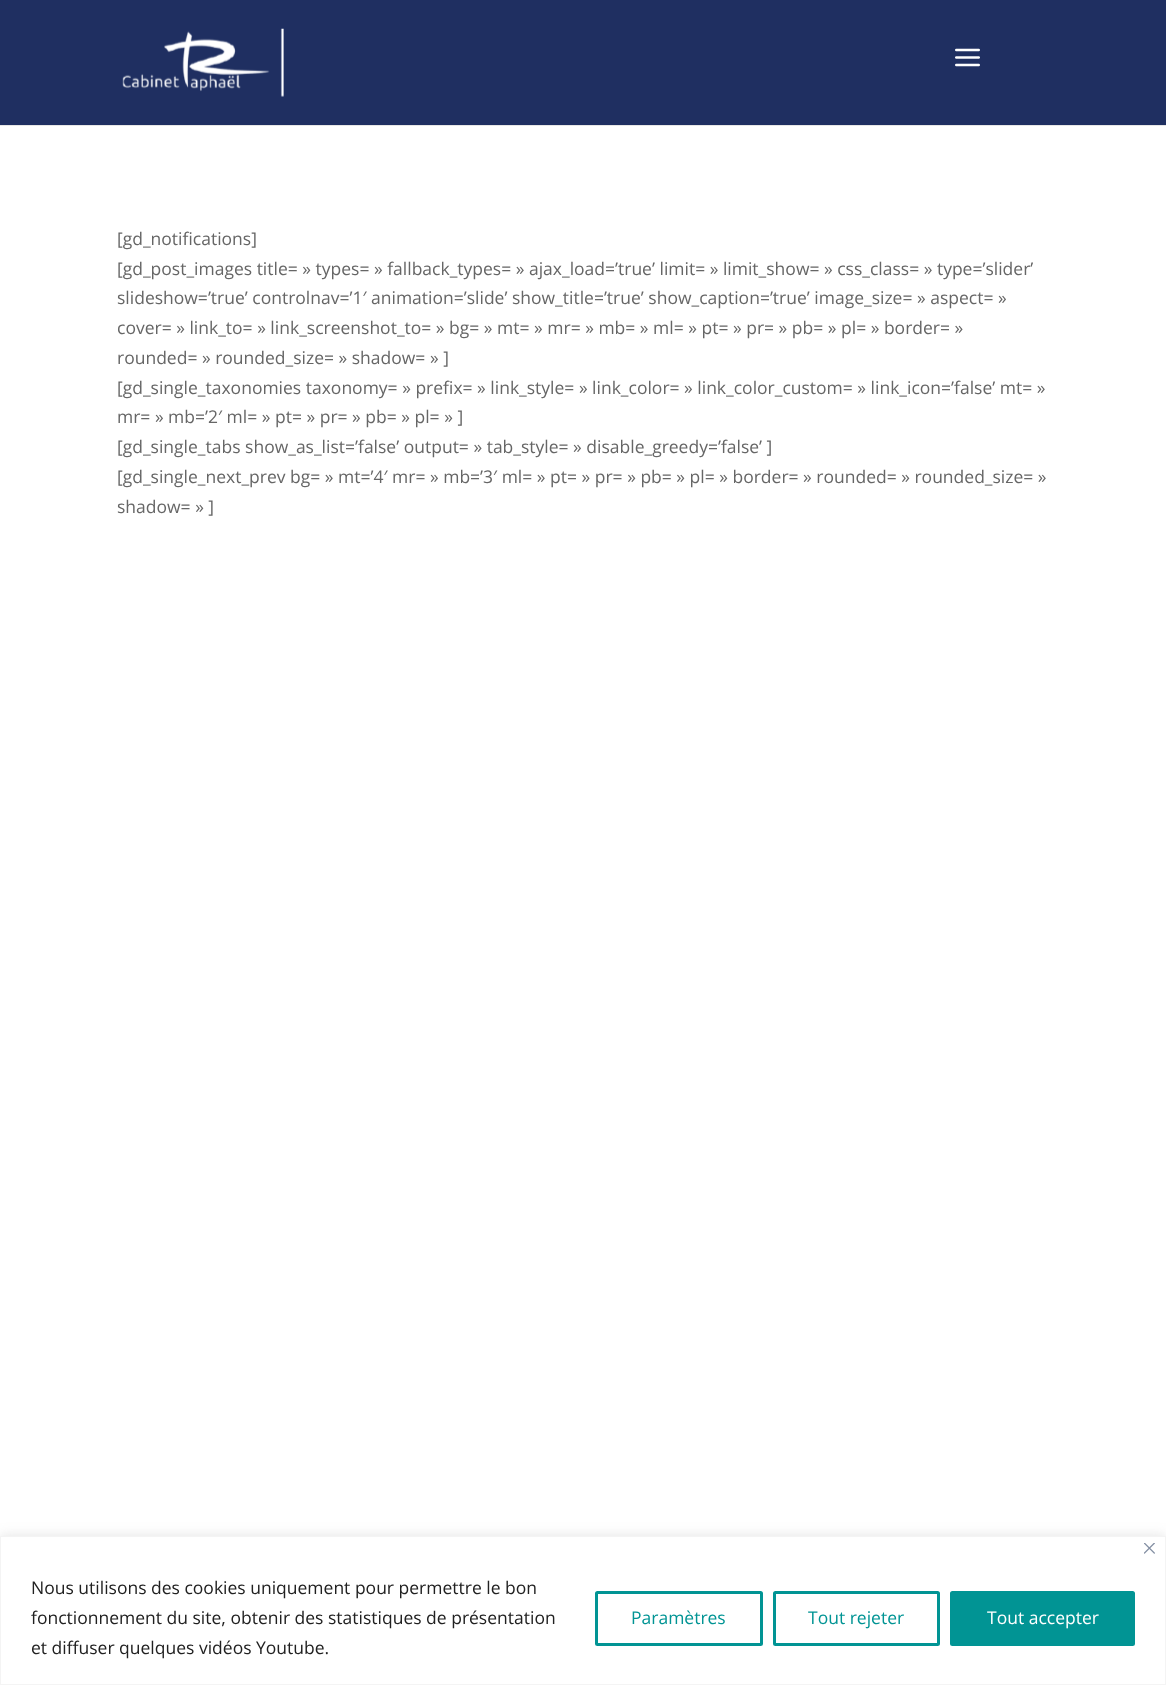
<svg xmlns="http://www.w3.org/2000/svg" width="1166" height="1685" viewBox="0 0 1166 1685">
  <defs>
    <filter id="blur1" x="-50%" y="-200%" width="200%" height="500%"><feGaussianBlur stdDeviation="6"/></filter>
  </defs>
  <rect width="100%" height="100%" fill="#ffffff"/>
  <rect x="0" y="125" width="1166" height="1" fill="#e6e6e6"/>
  <rect x="0" y="0" width="1166" height="125" fill="#1f2f61"/>
  <image x="122" y="28" width="162" height="69" href="img1.png"/>
  <image x="955" y="48" width="25" height="19" href="img2.png"/>
  <text x="117" y="245" font-family="Open Sans" font-size="17.5" fill="#666666">[gd_notifications]</text>
  <text x="117" y="275" font-family="Open Sans" font-size="17.5" fill="#666666">[gd_post_images title= » types= » fallback_types= » ajax_load=’true’ limit= » limit_show= » css_class= » type=’slider’</text>
  <text x="117" y="304" font-family="Open Sans" font-size="17.5" fill="#666666">slideshow=’true’ controlnav=’1′ animation=’slide’ show_title=’true’ show_caption=’true’ image_size= » aspect= »</text>
  <text x="117" y="334" font-family="Open Sans" font-size="17.5" fill="#666666">cover= » link_to= » link_screenshot_to= » bg= » mt= » mr= » mb= » ml= » pt= » pr= » pb= » pl= » border= »</text>
  <text x="117" y="364" font-family="Open Sans" font-size="17.5" fill="#666666">rounded= » rounded_size= » shadow= » ]</text>
  <text x="117" y="394" font-family="Open Sans" font-size="17.5" fill="#666666">[gd_single_taxonomies taxonomy= » prefix= » link_style= » link_color= » link_color_custom= » link_icon=’false’ mt= »</text>
  <text x="117" y="423" font-family="Open Sans" font-size="17.5" fill="#666666">mr= » mb=’2′ ml= » pt= » pr= » pb= » pl= » ]</text>
  <text x="117" y="453" font-family="Open Sans" font-size="17.5" fill="#666666">[gd_single_tabs show_as_list=’false’ output= » tab_style= » disable_greedy=’false’ ]</text>
  <text x="117" y="483" font-family="Open Sans" font-size="17.5" fill="#666666">[gd_single_next_prev bg= » mt=’4′ mr= » mb=’3′ ml= » pt= » pr= » pb= » pl= » border= » rounded= » rounded_size= »</text>
  <text x="117" y="513" font-family="Open Sans" font-size="17.5" fill="#666666">shadow= » ]</text>
  <rect x="0" y="1535" width="1166" height="149" fill="#acabab" fill-opacity="0.3" filter="url(#blur1)"/>
  <rect x="0.5" y="1536.5" width="1165" height="148" fill="#ffffff" stroke="#f4f4f4"/>
  <image x="1144" y="1543" width="11" height="11" href="img3.png"/>
  <text x="31" y="1594" font-family="Open Sans" font-size="17.5" fill="#212121">Nous utilisons des cookies uniquement pour permettre le bon</text>
  <text x="31" y="1624" font-family="Open Sans" font-size="17.5" fill="#212121">fonctionnement du site, obtenir des statistiques de présentation</text>
  <text x="31" y="1654" font-family="Open Sans" font-size="17.5" fill="#212121">et diffuser quelques vidéos Youtube.</text>
  <rect x="596.5" y="1592.5" width="165" height="52" rx="1" fill="none" stroke="#019494" stroke-width="3"/>
  <text x="631" y="1624" font-family="Open Sans" font-size="17.5" fill="#019494">Paramètres</text>
  <rect x="774.5" y="1592.5" width="164" height="52" rx="1" fill="none" stroke="#019494" stroke-width="3"/>
  <text x="808" y="1624" font-family="Open Sans" font-size="17.5" fill="#019494">Tout rejeter</text>
  <rect x="951.5" y="1592.5" width="182" height="52" rx="1" fill="#019494" stroke="#019494" stroke-width="3"/>
  <text x="987" y="1624" font-family="Open Sans" font-size="17.5" fill="#ffffff">Tout accepter</text>
</svg>
